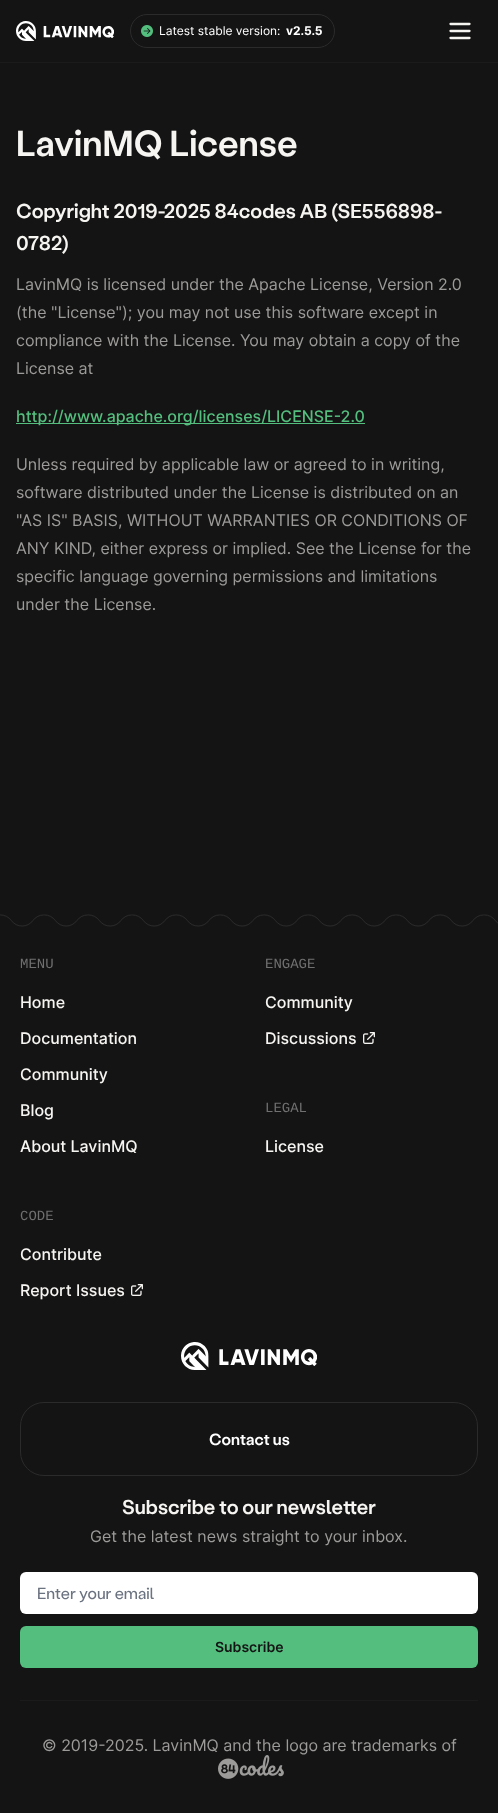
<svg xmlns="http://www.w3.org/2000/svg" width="498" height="1813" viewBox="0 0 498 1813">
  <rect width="100%" height="100%" fill="#141414"/>
  <rect x="0" y="62" width="498" height="1" fill="#1b1b1b"/>
  <image x="16" y="21" width="98" height="20" href="img1.png"/>
  <rect x="130.5" y="14.5" width="204" height="33" rx="16.5" fill="none" stroke="#2b2b2b"/>
  <image x="141" y="25" width="12" height="12" href="img2.png"/>
  <text x="159" y="35" font-family="Inter" font-size="12" fill="#ffffff">Latest stable version:</text>
  <text x="286" y="35" font-family="Inter" font-size="12" font-weight="bold" fill="#ffffff">v2.5.5</text>
  <path d="M450.5 24H469.5M450.5 31H469.5M450.5 38H469.5" fill="none" stroke="#f7f5f2" stroke-width="2.3" stroke-linecap="round" stroke-linejoin="round"/>
  <text x="16" y="156" font-family="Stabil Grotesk" font-size="36" font-weight="500" fill="#f7f5f2">LavinMQ License</text>
  <text x="16" y="218" font-family="Stabil Grotesk" font-size="20" font-weight="500" fill="#f7f5f2">Copyright 2019-2025 84codes AB (SE556898-</text>
  <text x="16" y="250" font-family="Stabil Grotesk" font-size="20" font-weight="500" fill="#f7f5f2">0782)</text>
  <text x="16" y="290" font-family="Inter" font-size="16" fill="#9c9b99">LavinMQ is licensed under the Apache License, Version 2.0</text>
  <text x="16" y="318" font-family="Inter" font-size="16" fill="#9c9b99">(the "License"); you may not use this software except in</text>
  <text x="16" y="346" font-family="Inter" font-size="16" fill="#9c9b99">compliance with the License. You may obtain a copy of the</text>
  <text x="16" y="374" font-family="Inter" font-size="16" fill="#9c9b99">License at</text>
  <rect x="16" y="423" width="349" height="1" fill="#54be7e"/>
  <text x="16" y="422" font-family="Inter" font-size="16" font-weight="500" fill="#54be7e">http://www.apache.org/licenses/LICENSE-2.0</text>
  <text x="16" y="470" font-family="Inter" font-size="16" fill="#9c9b99">Unless required by applicable law or agreed to in writing,</text>
  <text x="16" y="498" font-family="Inter" font-size="16" fill="#9c9b99">software distributed under the License is distributed on an</text>
  <text x="16" y="526" font-family="Inter" font-size="16" fill="#9c9b99">"AS IS" BASIS, WITHOUT WARRANTIES OR CONDITIONS OF</text>
  <text x="16" y="554" font-family="Inter" font-size="16" fill="#9c9b99">ANY KIND, either express or implied. See the License for the</text>
  <text x="16" y="582" font-family="Inter" font-size="16" fill="#9c9b99">specific language governing permissions and limitations</text>
  <text x="16" y="610" font-family="Inter" font-size="16" fill="#9c9b99">under the License.</text>
  <image x="0" y="914" width="498" height="13" href="img3.png"/>
  <text x="20" y="968" font-family="Liberation Mono" font-size="14" fill="#707070">MENU</text>
  <text x="20" y="1008" font-family="Inter" font-size="16" font-weight="500" fill="#f7f5f2">Home</text>
  <text x="20" y="1044" font-family="Inter" font-size="16" font-weight="500" fill="#f7f5f2">Documentation</text>
  <text x="20" y="1080" font-family="Inter" font-size="16" font-weight="500" fill="#f7f5f2">Community</text>
  <text x="20" y="1116" font-family="Inter" font-size="16" font-weight="500" fill="#f7f5f2">Blog</text>
  <text x="20" y="1152" font-family="Inter" font-size="16" font-weight="500" fill="#f7f5f2">About LavinMQ</text>
  <text x="20" y="1220" font-family="Liberation Mono" font-size="14" fill="#707070">CODE</text>
  <text x="20" y="1260" font-family="Inter" font-size="16" font-weight="500" fill="#f7f5f2">Contribute</text>
  <text x="20" y="1296" font-family="Inter" font-size="16" font-weight="500" fill="#f7f5f2">Report Issues</text>
  <image x="131" y="1284" width="12" height="12" href="img4.png"/>
  <text x="265" y="968" font-family="Liberation Mono" font-size="14" fill="#707070">ENGAGE</text>
  <text x="265" y="1008" font-family="Inter" font-size="16" font-weight="500" fill="#f7f5f2">Community</text>
  <text x="265" y="1044" font-family="Inter" font-size="16" font-weight="500" fill="#f7f5f2">Discussions</text>
  <image x="363" y="1032" width="12" height="12" href="img4.png"/>
  <text x="265" y="1112" font-family="Liberation Mono" font-size="14" fill="#707070">LEGAL</text>
  <text x="265" y="1152" font-family="Inter" font-size="16" font-weight="500" fill="#f7f5f2">License</text>
  <image x="181" y="1342" width="136" height="28" href="img5.png"/>
  <rect x="20.5" y="1402.5" width="457" height="73" rx="23.5" fill="none" stroke="#2b2b2b"/>
  <text x="209" y="1445" font-family="Stabil Grotesk" font-size="16" font-weight="500" fill="#ffffff">Contact us</text>
  <text x="122" y="1514" font-family="Stabil Grotesk" font-size="20" font-weight="500" fill="#f7f5f2">Subscribe to our newsletter</text>
  <text x="90" y="1542" font-family="Inter" font-size="16" fill="#9c9b99">Get the latest news straight to your inbox.</text>
  <rect x="20" y="1572" width="458" height="42" rx="6" fill="#ffffff"/>
  <text x="37" y="1599" font-family="Stabil Grotesk" font-size="16" fill="#6b7280">Enter your email</text>
  <rect x="20" y="1626" width="458" height="42" rx="6" fill="#54be7e"/>
  <text x="215" y="1652" font-family="Inter" font-size="14" font-weight="600" fill="#141414">Subscribe</text>
  <rect x="20" y="1700" width="458" height="1" fill="#1b1b1b"/>
  <text x="42" y="1751" font-family="Inter" font-size="16" fill="#9c9b99">© 2019-2025. LavinMQ and the logo are trademarks of</text>
  <image x="218" y="1755" width="66" height="24" href="img6.png"/>
</svg>
